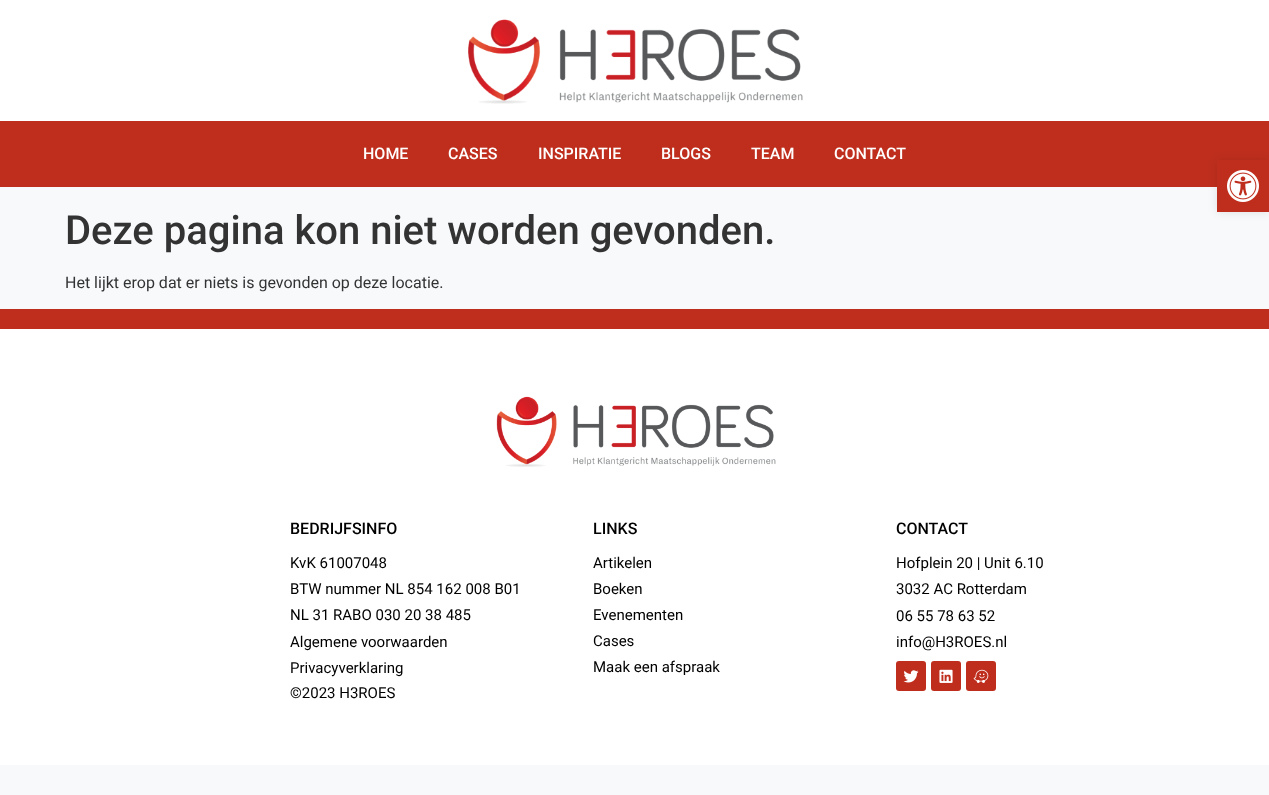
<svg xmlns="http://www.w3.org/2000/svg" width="1269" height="795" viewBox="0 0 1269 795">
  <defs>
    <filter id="blur1" x="-50%" y="-200%" width="200%" height="500%"><feGaussianBlur stdDeviation="5"/></filter>
  </defs>
  <rect width="100%" height="100%" fill="#f7f9fb"/>
  <rect x="0" y="0" width="1269" height="121" fill="#ffffff"/>
  <image x="468" y="19" width="335" height="85" href="img1.png"/>
  <rect x="0" y="121" width="1269" height="66" fill="#bf2e1d"/>
  <text x="363" y="159" font-family="Roboto" font-size="16" font-weight="500" fill="#ffffff">HOME</text>
  <text x="448" y="159" font-family="Roboto" font-size="16" font-weight="500" fill="#ffffff">CASES</text>
  <text x="538" y="159" font-family="Roboto" font-size="16" font-weight="500" fill="#ffffff">INSPIRATIE</text>
  <text x="661" y="159" font-family="Roboto" font-size="16" font-weight="500" fill="#ffffff">BLOGS</text>
  <text x="751" y="159" font-family="Roboto" font-size="16" font-weight="500" fill="#ffffff">TEAM</text>
  <text x="834" y="159" font-family="Roboto" font-size="16" font-weight="500" fill="#ffffff">CONTACT</text>
  <rect x="1217" y="160" width="52" height="52" fill="#000000" fill-opacity="0.1" filter="url(#blur1)"/>
  <rect x="1217" y="160" width="52" height="52" fill="#bf2e1d"/>
  <image x="1227" y="170" width="32" height="32" href="img2.png"/>
  <text x="65" y="244" font-family="Roboto" font-size="40" font-weight="500" fill="#333333">Deze pagina kon niet worden gevonden.</text>
  <text x="65" y="288" font-family="Roboto" font-size="16" fill="#333333">Het lijkt erop dat er niets is gevonden op deze locatie.</text>
  <rect x="0" y="329" width="1269" height="436" fill="#ffffff"/>
  <rect x="0" y="309" width="1269" height="20" fill="#bf2e1d"/>
  <image x="496" y="396" width="280" height="71" href="img3.png"/>
  <text x="290" y="534" font-family="Roboto" font-size="16" font-weight="500" fill="#000000">BEDRIJFSINFO</text>
  <text x="290" y="568" font-family="Roboto" font-size="15" fill="#000000">KvK 61007048</text>
  <text x="290" y="594" font-family="Roboto" font-size="15" fill="#000000">BTW nummer NL 854 162 008 B01</text>
  <text x="290" y="620" font-family="Roboto" font-size="15" fill="#000000">NL 31 RABO 030 20 38 485</text>
  <text x="290" y="647" font-family="Roboto" font-size="15" fill="#000000">Algemene voorwaarden</text>
  <text x="290" y="673" font-family="Roboto" font-size="15" fill="#000000">Privacyverklaring</text>
  <text x="290" y="698" font-family="Roboto" font-size="15" fill="#000000">©2023 H3ROES</text>
  <text x="593" y="534" font-family="Roboto" font-size="16" font-weight="500" fill="#000000">LINKS</text>
  <text x="593" y="568" font-family="Roboto" font-size="15" fill="#000000">Artikelen</text>
  <text x="593" y="594" font-family="Roboto" font-size="15" fill="#000000">Boeken</text>
  <text x="593" y="620" font-family="Roboto" font-size="15" fill="#000000">Evenementen</text>
  <text x="593" y="646" font-family="Roboto" font-size="15" fill="#000000">Cases</text>
  <text x="593" y="672" font-family="Roboto" font-size="15" fill="#000000">Maak een afspraak</text>
  <text x="896" y="534" font-family="Roboto" font-size="16" font-weight="500" fill="#000000">CONTACT</text>
  <text x="896" y="568" font-family="Roboto" font-size="15" fill="#000000">Hofplein 20 | Unit 6.10</text>
  <text x="896" y="594" font-family="Roboto" font-size="15" fill="#000000">3032 AC Rotterdam</text>
  <text x="896" y="621" font-family="Roboto" font-size="15" fill="#000000">06 55 78 63 52</text>
  <text x="896" y="647" font-family="Roboto" font-size="15" fill="#000000">info@H3ROES.nl</text>
  <rect x="896" y="661" width="30" height="30" rx="3" fill="#bf2e1d"/>
  <image x="903" y="670" width="16" height="13" href="img4.png"/>
  <rect x="931" y="661" width="30" height="30" rx="3" fill="#bf2e1d"/>
  <image x="939" y="669" width="14" height="14" href="img5.png"/>
  <rect x="966" y="661" width="30" height="30" rx="3" fill="#bf2e1d"/>
  <image x="973" y="669" width="16" height="14" href="img6.png"/>
</svg>
